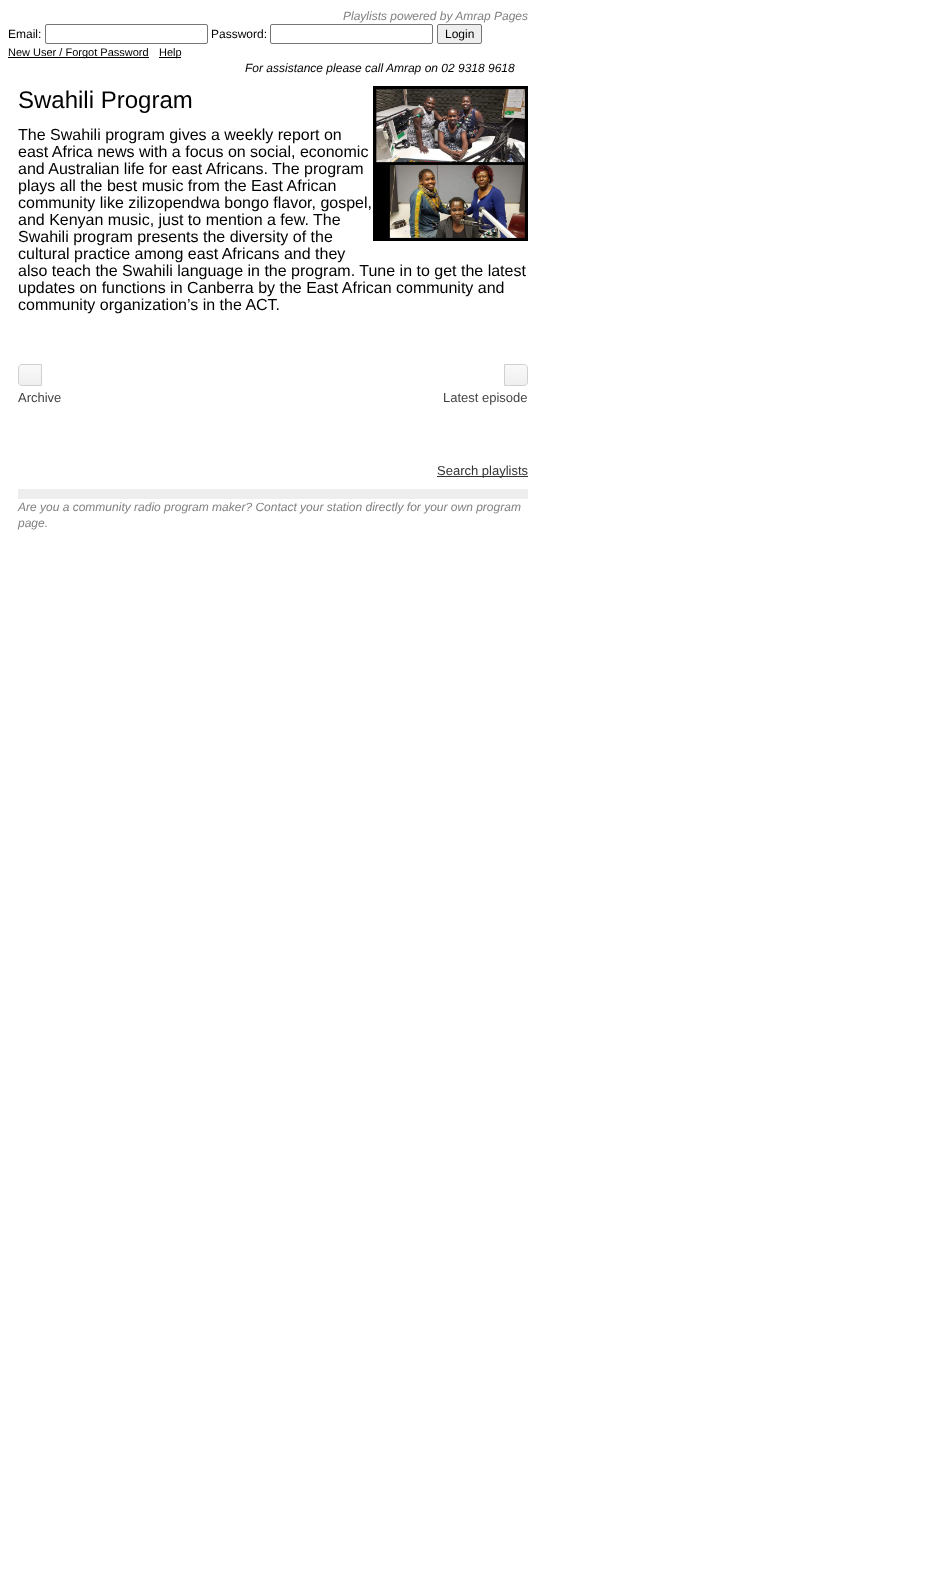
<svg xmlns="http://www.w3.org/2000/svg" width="948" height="1588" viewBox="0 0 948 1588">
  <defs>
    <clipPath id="clip1"><path d="M22 364H42V386H22C20 386 18 384 18 382V368C18 366 20 364 22 364Z"/></clipPath>
    <linearGradient id="g1" gradientUnits="userSpaceOnUse" x1="30" y1="365" x2="30" y2="385"><stop offset="0" stop-color="#f9f9f9"/><stop offset="1" stop-color="#efefef"/></linearGradient>
    <clipPath id="clip2"><path d="M504 364H524C526 364 528 366 528 368V382C528 384 526 386 524 386H504Z"/></clipPath>
    <linearGradient id="g2" gradientUnits="userSpaceOnUse" x1="516" y1="365" x2="516" y2="385"><stop offset="0" stop-color="#f9f9f9"/><stop offset="1" stop-color="#efefef"/></linearGradient>
  </defs>
  <rect width="100%" height="100%" fill="#ffffff"/>
  <text x="343" y="20" font-family="Liberation Sans" font-size="12" font-style="italic" fill="#808080">Playlists powered by Amrap Pages</text>
  <text x="8" y="38" font-family="Liberation Sans" font-size="12" fill="#000000">Email:</text>
  <rect x="45.5" y="24.5" width="162" height="19" rx="1.5" fill="none" stroke="#767676"/>
  <text x="211" y="38" font-family="Liberation Sans" font-size="12" fill="#000000">Password:</text>
  <rect x="270.5" y="24.5" width="162" height="19" rx="1.5" fill="none" stroke="#767676"/>
  <rect x="437.5" y="24.5" width="44" height="19" rx="1.5" fill="#efefef" stroke="#767676"/>
  <text x="445" y="38" font-family="Liberation Sans" font-size="12" fill="#000000">Login</text>
  <rect x="8" y="57" width="141" height="1" fill="#000000"/>
  <text x="8" y="56" font-family="Liberation Sans" font-size="11" fill="#000000">New User / Forgot Password</text>
  <rect x="159" y="57" width="22" height="1" fill="#000000"/>
  <text x="159" y="56" font-family="Liberation Sans" font-size="11" fill="#000000">Help</text>
  <text x="245" y="72" font-family="Liberation Sans" font-size="12" font-style="italic" fill="#000000">For assistance please call Amrap on 02 9318 9618</text>
  <text x="18" y="108" font-family="Liberation Sans" font-size="24" fill="#000000">Swahili Program</text>
  <image x="373" y="86" width="155" height="155" href="img1.png"/>
  <text x="18" y="140" font-family="Liberation Sans" font-size="16" fill="#000000">The Swahili program gives a weekly report on</text>
  <text x="18" y="157" font-family="Liberation Sans" font-size="16" fill="#000000">east Africa news with a focus on social, economic</text>
  <text x="18" y="174" font-family="Liberation Sans" font-size="16" fill="#000000">and Australian life for east Africans. The program</text>
  <text x="18" y="191" font-family="Liberation Sans" font-size="16" fill="#000000">plays all the best music from the East African</text>
  <text x="18" y="208" font-family="Liberation Sans" font-size="16" fill="#000000">community like zilizopendwa bongo flavor, gospel,</text>
  <text x="18" y="225" font-family="Liberation Sans" font-size="16" fill="#000000">and Kenyan music, just to mention a few. The</text>
  <text x="18" y="242" font-family="Liberation Sans" font-size="16" fill="#000000">Swahili program presents the diversity of the</text>
  <text x="18" y="259" font-family="Liberation Sans" font-size="16" fill="#000000">cultural practice among east Africans and they</text>
  <text x="18" y="276" font-family="Liberation Sans" font-size="16" fill="#000000">also teach the Swahili language in the program. Tune in to get the latest</text>
  <text x="18" y="293" font-family="Liberation Sans" font-size="16" fill="#000000">updates on functions in Canberra by the East African community and</text>
  <text x="18" y="310" font-family="Liberation Sans" font-size="16" fill="#000000">community organization’s in the ACT.</text>
  <g clip-path="url(#clip1)">
    <rect x="18" y="365" width="23" height="20" fill="url(#g1)"/>
  </g>
  <path d="M22 364.5H41.5V385.5H22C20 385.5 18.5 384 18.5 382V368C18.5 366 20 364.5 22 364.5Z" fill="none" stroke="#d0d0d0"/>
  <g clip-path="url(#clip2)">
    <rect x="505" y="365" width="23" height="20" fill="url(#g2)"/>
  </g>
  <path d="M504.5 364.5H524C526 364.5 527.5 366 527.5 368V382C527.5 384 526 385.5 524 385.5H504.5Z" fill="none" stroke="#d0d0d0"/>
  <text x="18" y="402" font-family="Liberation Sans" font-size="13" fill="#444444">Archive</text>
  <text x="443" y="402" font-family="Liberation Sans" font-size="13" fill="#444444">Latest episode</text>
  <rect x="437" y="476" width="91" height="1" fill="#333333"/>
  <text x="437" y="475" font-family="Liberation Sans" font-size="13" fill="#333333">Search playlists</text>
  <rect x="18" y="489" width="510" height="10" fill="#eeeeee"/>
  <text x="18" y="511" font-family="Liberation Sans" font-size="12" font-style="italic" fill="#808080">Are you a community radio program maker? Contact your station directly for your own program</text>
  <text x="18" y="527" font-family="Liberation Sans" font-size="12" font-style="italic" fill="#808080">page.</text>
</svg>
